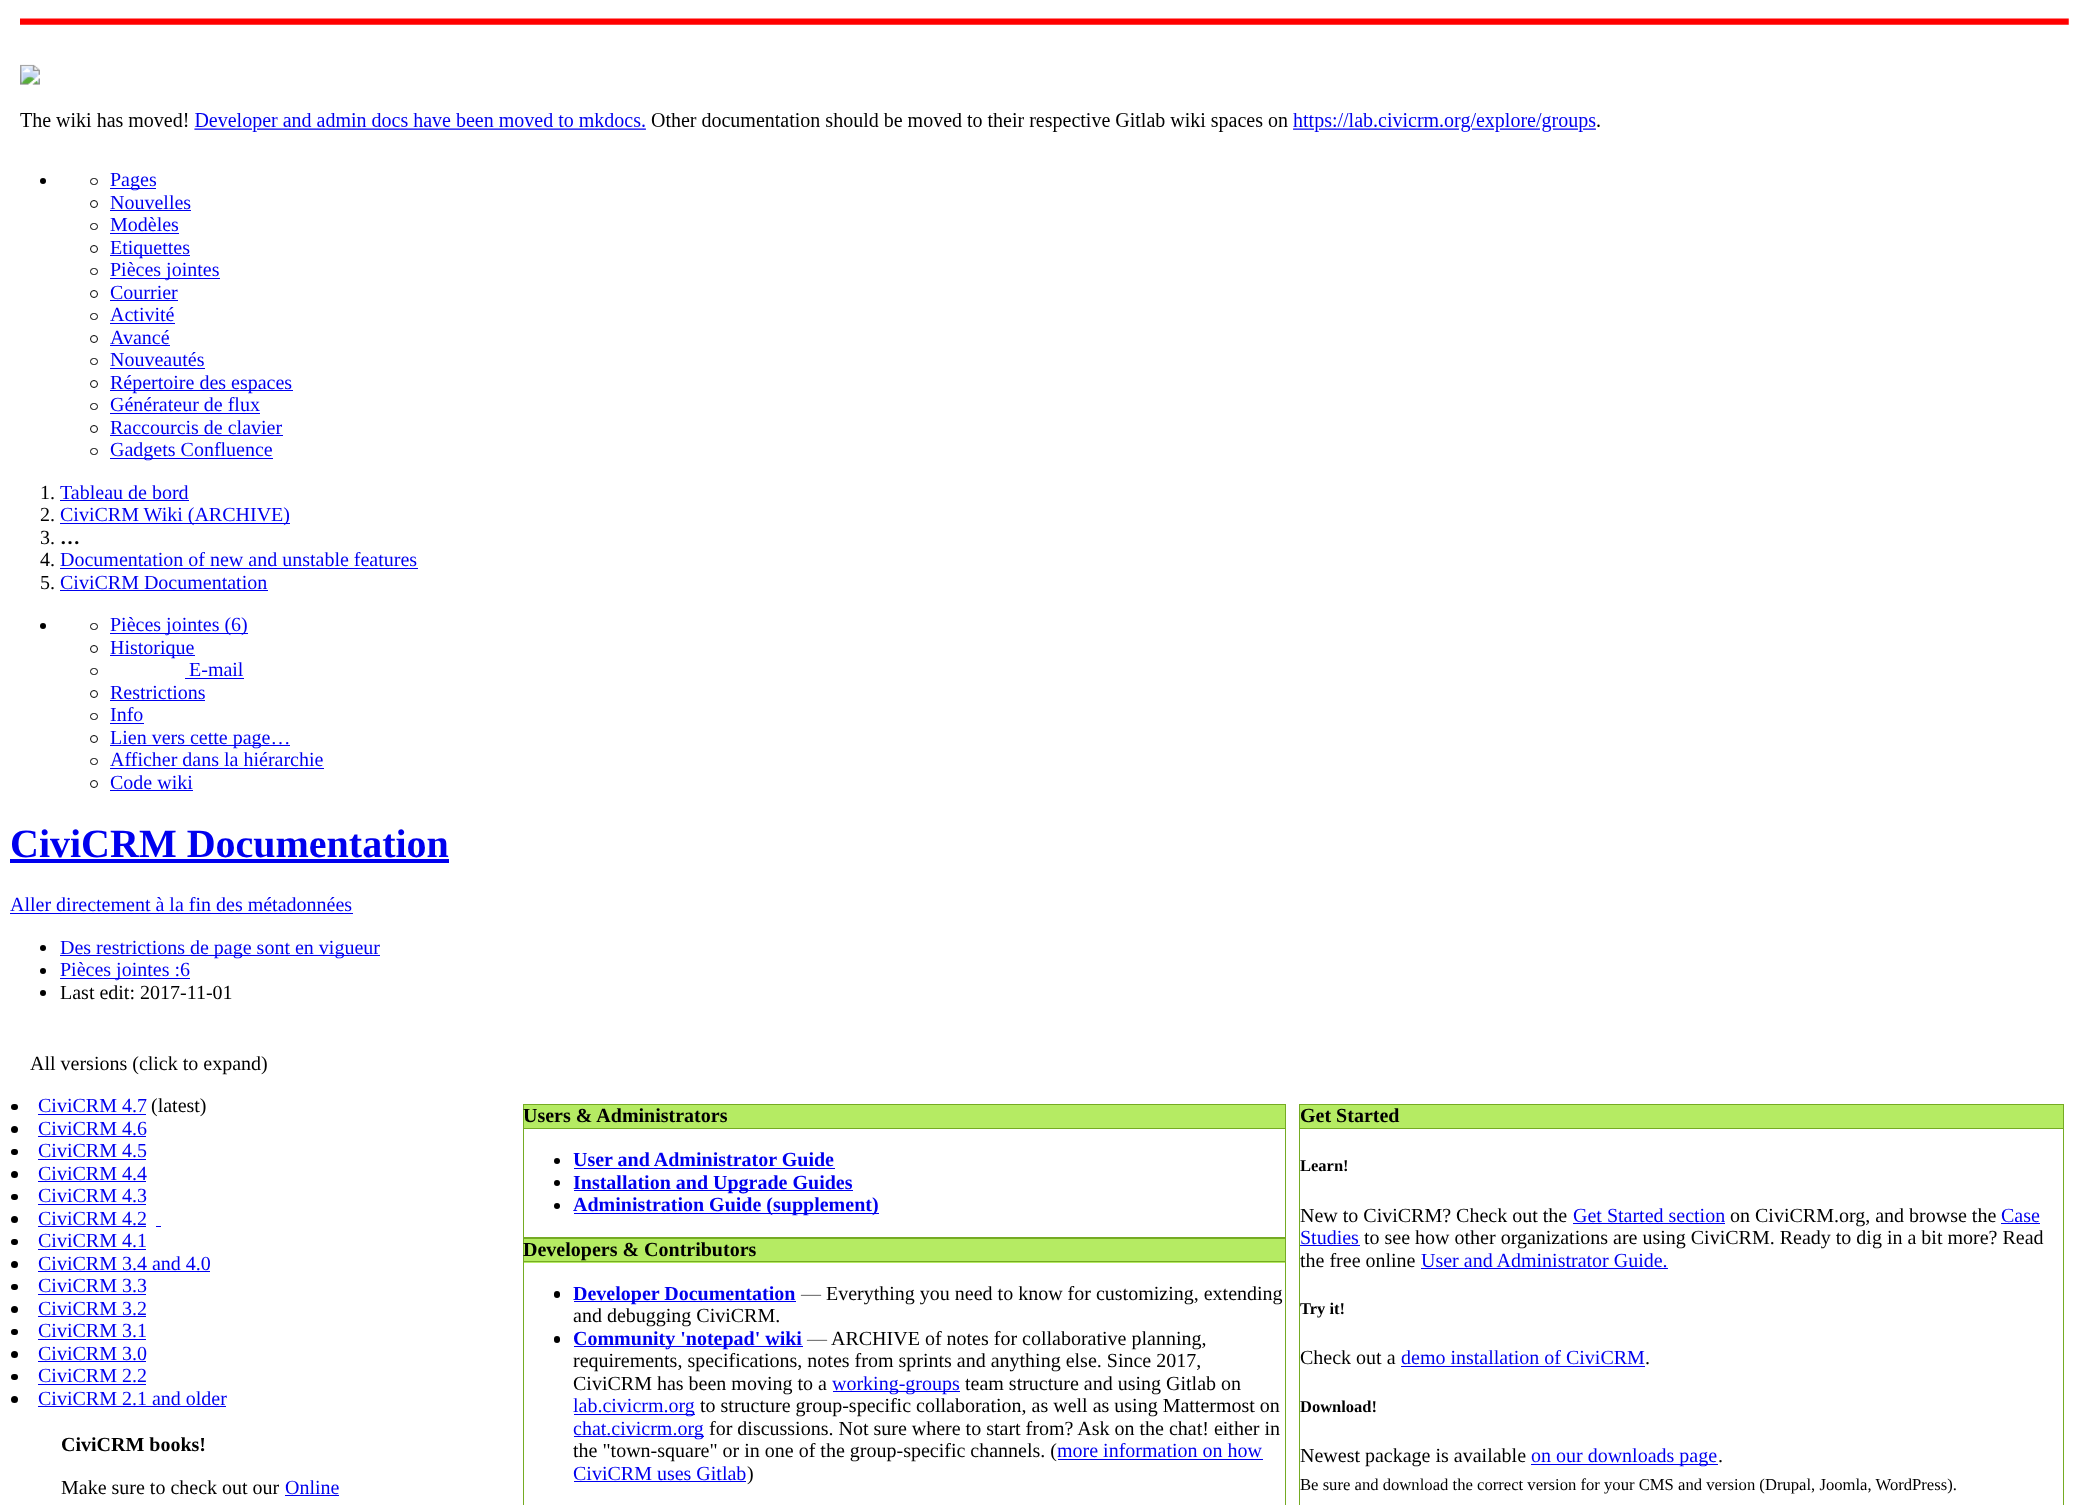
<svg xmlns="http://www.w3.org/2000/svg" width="2088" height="1505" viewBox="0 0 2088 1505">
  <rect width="100%" height="100%" fill="#ffffff"/>
  <image x="20" y="18" width="2049" height="114" href="img1.png"/>
  <circle cx="43" cy="181" r="3" fill="#000000"/>
  <rect x="90.5" y="178.5" width="7" height="6" rx="3" fill="none" stroke="#000000"/>
  <rect x="110" y="188" width="46" height="1" fill="#0000ee"/>
  <text x="110" y="186" font-family="Liberation Serif" font-size="20" fill="#0000ee">Pages</text>
  <circle cx="94" cy="204" r="3.5" fill="none" stroke="#000000"/>
  <text x="110" y="209" font-family="Liberation Serif" font-size="20" fill="#0000ee">Nouvelles</text>
  <rect x="110" y="210" width="81" height="1" fill="#0000ee"/>
  <rect x="90.5" y="223.5" width="7" height="6" rx="3" fill="none" stroke="#000000"/>
  <text x="110" y="231" font-family="Liberation Serif" font-size="20" fill="#0000ee">Modèles</text>
  <rect x="110" y="233" width="69" height="1" fill="#0000ee"/>
  <circle cx="94" cy="249" r="3.5" fill="none" stroke="#000000"/>
  <rect x="110" y="255" width="80" height="1" fill="#0000ee"/>
  <text x="110" y="254" font-family="Liberation Serif" font-size="20" fill="#0000ee">Etiquettes</text>
  <rect x="90.5" y="268.5" width="7" height="6" rx="3" fill="none" stroke="#000000"/>
  <rect x="110" y="278" width="110" height="1" fill="#0000ee"/>
  <text x="110" y="276" font-family="Liberation Serif" font-size="20" fill="#0000ee">Pièces jointes</text>
  <circle cx="94" cy="294" r="3.5" fill="none" stroke="#000000"/>
  <text x="110" y="299" font-family="Liberation Serif" font-size="20" fill="#0000ee">Courrier</text>
  <rect x="110" y="300" width="68" height="1" fill="#0000ee"/>
  <rect x="90.5" y="313.5" width="7" height="6" rx="3" fill="none" stroke="#000000"/>
  <text x="110" y="321" font-family="Liberation Serif" font-size="20" fill="#0000ee">Activité</text>
  <rect x="110" y="323" width="65" height="1" fill="#0000ee"/>
  <circle cx="94" cy="339" r="3.5" fill="none" stroke="#000000"/>
  <text x="110" y="344" font-family="Liberation Serif" font-size="20" fill="#0000ee">Avancé</text>
  <rect x="110" y="345" width="60" height="1" fill="#0000ee"/>
  <rect x="90.5" y="358.5" width="7" height="6" rx="3" fill="none" stroke="#000000"/>
  <text x="110" y="366" font-family="Liberation Serif" font-size="20" fill="#0000ee">Nouveautés</text>
  <rect x="110" y="368" width="95" height="1" fill="#0000ee"/>
  <circle cx="94" cy="384" r="3.5" fill="none" stroke="#000000"/>
  <rect x="110" y="390" width="183" height="1" fill="#0000ee"/>
  <text x="110" y="389" font-family="Liberation Serif" font-size="20" fill="#0000ee">Répertoire des espaces</text>
  <rect x="90.5" y="403.5" width="7" height="6" rx="3" fill="none" stroke="#000000"/>
  <text x="110" y="411" font-family="Liberation Serif" font-size="20" fill="#0000ee">Générateur de flux</text>
  <rect x="110" y="413" width="150" height="1" fill="#0000ee"/>
  <circle cx="94" cy="429" r="3.5" fill="none" stroke="#000000"/>
  <text x="110" y="434" font-family="Liberation Serif" font-size="20" fill="#0000ee">Raccourcis de clavier</text>
  <rect x="110" y="435" width="173" height="1" fill="#0000ee"/>
  <rect x="90.5" y="448.5" width="7" height="6" rx="3" fill="none" stroke="#000000"/>
  <rect x="110" y="458" width="163" height="1" fill="#0000ee"/>
  <text x="110" y="456" font-family="Liberation Serif" font-size="20" fill="#0000ee">Gadgets Confluence</text>
  <text x="40" y="499" font-family="Liberation Serif" font-size="20" fill="#000000">1.</text>
  <text x="60" y="499" font-family="Liberation Serif" font-size="20" fill="#0000ee">Tableau de bord</text>
  <rect x="60" y="500" width="129" height="1" fill="#0000ee"/>
  <text x="40" y="521" font-family="Liberation Serif" font-size="20" fill="#000000">2.</text>
  <rect x="60" y="523" width="230" height="1" fill="#0000ee"/>
  <text x="60" y="521" font-family="Liberation Serif" font-size="20" fill="#0000ee">CiviCRM Wiki (ARCHIVE)</text>
  <text x="40" y="544" font-family="Liberation Serif" font-size="20" fill="#000000">3.</text>
  <text x="60" y="544" font-family="Liberation Serif" font-size="20" font-weight="bold" fill="#000000">…</text>
  <text x="40" y="566" font-family="Liberation Serif" font-size="20" fill="#000000">4.</text>
  <text x="60" y="566" font-family="Liberation Serif" font-size="20" fill="#0000ee">Documentation of new and unstable features</text>
  <rect x="60" y="568" width="358" height="1" fill="#0000ee"/>
  <text x="40" y="589" font-family="Liberation Serif" font-size="20" fill="#000000">5.</text>
  <text x="60" y="589" font-family="Liberation Serif" font-size="20" fill="#0000ee">CiviCRM Documentation</text>
  <rect x="60" y="590" width="208" height="1" fill="#0000ee"/>
  <circle cx="43" cy="626" r="3" fill="#000000"/>
  <rect x="90.5" y="623.5" width="7" height="6" rx="3" fill="none" stroke="#000000"/>
  <rect x="110" y="633" width="138" height="1" fill="#0000ee"/>
  <text x="110" y="631" font-family="Liberation Serif" font-size="20" fill="#0000ee">Pièces jointes (6)</text>
  <circle cx="94" cy="649" r="3.5" fill="none" stroke="#000000"/>
  <rect x="110" y="655" width="85" height="1" fill="#0000ee"/>
  <text x="110" y="654" font-family="Liberation Serif" font-size="20" fill="#0000ee">Historique</text>
  <rect x="90.5" y="668.5" width="7" height="6" rx="3" fill="none" stroke="#000000"/>
  <text x="189" y="676" font-family="Liberation Serif" font-size="20" fill="#0000ee">E-mail</text>
  <rect x="185" y="678" width="59" height="1" fill="#0000ee"/>
  <circle cx="94" cy="694" r="3.5" fill="none" stroke="#000000"/>
  <text x="110" y="699" font-family="Liberation Serif" font-size="20" fill="#0000ee">Restrictions</text>
  <rect x="110" y="700" width="95" height="1" fill="#0000ee"/>
  <rect x="90.5" y="713.5" width="7" height="6" rx="3" fill="none" stroke="#000000"/>
  <text x="110" y="721" font-family="Liberation Serif" font-size="20" fill="#0000ee">Info</text>
  <rect x="110" y="723" width="34" height="1" fill="#0000ee"/>
  <circle cx="94" cy="739" r="3.5" fill="none" stroke="#000000"/>
  <rect x="110" y="745" width="180" height="1" fill="#0000ee"/>
  <text x="110" y="744" font-family="Liberation Serif" font-size="20" fill="#0000ee">Lien vers cette page…</text>
  <rect x="90.5" y="758.5" width="7" height="6" rx="3" fill="none" stroke="#000000"/>
  <text x="110" y="766" font-family="Liberation Serif" font-size="20" fill="#0000ee">Afficher dans la hiérarchie</text>
  <rect x="110" y="768" width="214" height="1" fill="#0000ee"/>
  <circle cx="94" cy="784" r="3.5" fill="none" stroke="#000000"/>
  <text x="110" y="789" font-family="Liberation Serif" font-size="20" fill="#0000ee">Code wiki</text>
  <rect x="110" y="790" width="83" height="1" fill="#0000ee"/>
  <text x="10" y="857" font-family="Liberation Serif" font-size="40" font-weight="bold" fill="#0000ee">CiviCRM Documentation</text>
  <rect x="10" y="859" width="439" height="4" fill="#0000ee"/>
  <text x="10" y="911" font-family="Liberation Serif" font-size="20" fill="#0000ee">Aller directement à la fin des métadonnées</text>
  <rect x="10" y="913" width="343" height="1" fill="#0000ee"/>
  <circle cx="43" cy="948" r="3" fill="#000000"/>
  <rect x="60" y="955" width="320" height="1" fill="#0000ee"/>
  <text x="60" y="954" font-family="Liberation Serif" font-size="20" fill="#0000ee">Des restrictions de page sont en vigueur</text>
  <circle cx="43" cy="971" r="3" fill="#000000"/>
  <rect x="60" y="978" width="130" height="1" fill="#0000ee"/>
  <text x="60" y="976" font-family="Liberation Serif" font-size="20" fill="#0000ee">Pièces jointes :6</text>
  <circle cx="43" cy="993" r="3" fill="#000000"/>
  <text x="60" y="999" font-family="Liberation Serif" font-size="20" fill="#000000">Last edit: 2017-11-01</text>
  <text x="30" y="1070" font-family="Liberation Serif" font-size="20" fill="#000000">All versions (click to expand)</text>
  <rect x="11" y="1104" width="7" height="6" rx="3" fill="#000000"/>
  <text x="38" y="1112" font-family="Liberation Serif" font-size="20" fill="#0000ee">CiviCRM 4.7</text>
  <rect x="38" y="1114" width="108" height="1" fill="#0000ee"/>
  <text x="151" y="1112" font-family="Liberation Serif" font-size="20" fill="#000000">(latest)</text>
  <circle cx="14.5" cy="1129.5" r="3.5" fill="#000000"/>
  <text x="38" y="1135" font-family="Liberation Serif" font-size="20" fill="#0000ee">CiviCRM 4.6</text>
  <rect x="38" y="1136" width="108" height="1" fill="#0000ee"/>
  <rect x="11" y="1149" width="7" height="6" rx="3" fill="#000000"/>
  <text x="38" y="1157" font-family="Liberation Serif" font-size="20" fill="#0000ee">CiviCRM 4.5</text>
  <rect x="38" y="1159" width="108" height="1" fill="#0000ee"/>
  <circle cx="14.5" cy="1174.5" r="3.5" fill="#000000"/>
  <text x="38" y="1180" font-family="Liberation Serif" font-size="20" fill="#0000ee">CiviCRM 4.4</text>
  <rect x="38" y="1181" width="108" height="1" fill="#0000ee"/>
  <rect x="11" y="1194" width="7" height="6" rx="3" fill="#000000"/>
  <text x="38" y="1202" font-family="Liberation Serif" font-size="20" fill="#0000ee">CiviCRM 4.3</text>
  <rect x="38" y="1204" width="108" height="1" fill="#0000ee"/>
  <circle cx="14.5" cy="1219.5" r="3.5" fill="#000000"/>
  <text x="38" y="1225" font-family="Liberation Serif" font-size="20" fill="#0000ee">CiviCRM 4.2</text>
  <rect x="38" y="1226" width="108" height="1" fill="#0000ee"/>
  <rect x="156" y="1226" width="5" height="1" fill="#0000ee"/>
  <rect x="11" y="1239" width="7" height="6" rx="3" fill="#000000"/>
  <text x="38" y="1247" font-family="Liberation Serif" font-size="20" fill="#0000ee">CiviCRM 4.1</text>
  <rect x="38" y="1249" width="108" height="1" fill="#0000ee"/>
  <circle cx="14.5" cy="1264.5" r="3.5" fill="#000000"/>
  <text x="38" y="1270" font-family="Liberation Serif" font-size="20" fill="#0000ee">CiviCRM 3.4 and 4.0</text>
  <rect x="38" y="1271" width="172" height="1" fill="#0000ee"/>
  <rect x="11" y="1284" width="7" height="6" rx="3" fill="#000000"/>
  <text x="38" y="1292" font-family="Liberation Serif" font-size="20" fill="#0000ee">CiviCRM 3.3</text>
  <rect x="38" y="1294" width="108" height="1" fill="#0000ee"/>
  <circle cx="14.5" cy="1309.5" r="3.5" fill="#000000"/>
  <text x="38" y="1315" font-family="Liberation Serif" font-size="20" fill="#0000ee">CiviCRM 3.2</text>
  <rect x="38" y="1316" width="108" height="1" fill="#0000ee"/>
  <rect x="11" y="1329" width="7" height="6" rx="3" fill="#000000"/>
  <text x="38" y="1337" font-family="Liberation Serif" font-size="20" fill="#0000ee">CiviCRM 3.1</text>
  <rect x="38" y="1339" width="108" height="1" fill="#0000ee"/>
  <circle cx="14.5" cy="1354.5" r="3.5" fill="#000000"/>
  <text x="38" y="1360" font-family="Liberation Serif" font-size="20" fill="#0000ee">CiviCRM 3.0</text>
  <rect x="38" y="1361" width="108" height="1" fill="#0000ee"/>
  <rect x="11" y="1374" width="7" height="6" rx="3" fill="#000000"/>
  <text x="38" y="1382" font-family="Liberation Serif" font-size="20" fill="#0000ee">CiviCRM 2.2</text>
  <rect x="38" y="1384" width="108" height="1" fill="#0000ee"/>
  <circle cx="14.5" cy="1399.5" r="3.5" fill="#000000"/>
  <text x="38" y="1405" font-family="Liberation Serif" font-size="20" fill="#0000ee">CiviCRM 2.1 and older</text>
  <rect x="38" y="1406" width="188" height="1" fill="#0000ee"/>
  <text x="61" y="1451" font-family="Liberation Serif" font-size="20" font-weight="bold" fill="#000000">CiviCRM books!</text>
  <text x="61" y="1494" font-family="Liberation Serif" font-size="20" fill="#000000">Make sure to check out our</text>
  <text x="285" y="1494" font-family="Liberation Serif" font-size="20" fill="#0000ee">Online</text>
  <rect x="285" y="1495" width="54" height="1" fill="#0000ee"/>
  <rect x="523.5" y="1104.5" width="762" height="133" fill="none" stroke="#75ab23"/>
  <rect x="524" y="1105" width="761" height="23" fill="#b5eb63"/>
  <rect x="524" y="1128" width="761" height="1" fill="#75ab23"/>
  <text x="523" y="1122" font-family="Liberation Serif" font-size="20" font-weight="bold" fill="#000000">Users &amp; Administrators</text>
  <circle cx="557" cy="1161" r="3" fill="#000000"/>
  <text x="573" y="1166" font-family="Liberation Serif" font-size="20" font-weight="bold" fill="#0000ee">User and Administrator Guide</text>
  <rect x="574" y="1168" width="261" height="1" fill="#0000ee"/>
  <circle cx="557" cy="1183" r="3" fill="#000000"/>
  <rect x="574" y="1190" width="279" height="1" fill="#0000ee"/>
  <text x="573" y="1189" font-family="Liberation Serif" font-size="20" font-weight="bold" fill="#0000ee">Installation and Upgrade Guides</text>
  <circle cx="557" cy="1206" r="3" fill="#000000"/>
  <rect x="574" y="1213" width="305" height="1" fill="#0000ee"/>
  <text x="573" y="1211" font-family="Liberation Serif" font-size="20" font-weight="bold" fill="#0000ee">Administration Guide (supplement)</text>
  <rect x="523.5" y="1238.5" width="762" height="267" fill="none" stroke="#75ab23"/>
  <rect x="524" y="1239" width="761" height="24" fill="#b5eb63"/>
  <rect x="524" y="1261" width="761" height="1" fill="#75ab23"/>
  <text x="523" y="1256" font-family="Liberation Serif" font-size="20" font-weight="bold" fill="#000000">Developers &amp; Contributors</text>
  <rect x="554" y="1291" width="6" height="7" rx="3" fill="#000000"/>
  <rect x="574" y="1301" width="222" height="1" fill="#0000ee"/>
  <text x="573" y="1300" font-family="Liberation Serif" font-size="20" font-weight="bold" fill="#0000ee">Developer Documentation</text>
  <text x="801" y="1300" font-family="Liberation Serif" font-size="20" fill="#646464">—</text>
  <text x="826" y="1300" font-family="Liberation Serif" font-size="20" fill="#000000">Everything you need to know for customizing, extending</text>
  <text x="573" y="1322" font-family="Liberation Serif" font-size="20" fill="#000000">and debugging CiviCRM.</text>
  <rect x="554" y="1336" width="6" height="7" rx="3" fill="#000000"/>
  <rect x="574" y="1346" width="229" height="1" fill="#0000ee"/>
  <text x="573" y="1345" font-family="Liberation Serif" font-size="20" font-weight="bold" fill="#0000ee">Community 'notepad' wiki</text>
  <text x="807" y="1345" font-family="Liberation Serif" font-size="20" fill="#646464">—</text>
  <text x="831" y="1345" font-family="Liberation Serif" font-size="20" fill="#000000">ARCHIVE of notes for collaborative planning,</text>
  <text x="573" y="1367" font-family="Liberation Serif" font-size="20" fill="#000000">requirements, specifications, notes from sprints and anything else. Since 2017,</text>
  <text x="573" y="1390" font-family="Liberation Serif" font-size="20" fill="#000000">CiviCRM has been moving to a</text>
  <rect x="833" y="1391" width="127" height="1" fill="#0000ee"/>
  <text x="832" y="1390" font-family="Liberation Serif" font-size="20" fill="#0000ee">working-groups</text>
  <text x="965" y="1390" font-family="Liberation Serif" font-size="20" fill="#000000">team structure and using Gitlab on</text>
  <rect x="574" y="1414" width="121" height="1" fill="#0000ee"/>
  <text x="573" y="1412" font-family="Liberation Serif" font-size="20" fill="#0000ee">lab.civicrm.org</text>
  <text x="700" y="1412" font-family="Liberation Serif" font-size="20" fill="#000000">to structure group-specific collaboration, as well as using Mattermost on</text>
  <rect x="574" y="1436" width="130" height="1" fill="#0000ee"/>
  <text x="573" y="1435" font-family="Liberation Serif" font-size="20" fill="#0000ee">chat.civicrm.org</text>
  <text x="709" y="1435" font-family="Liberation Serif" font-size="20" fill="#000000">for discussions. Not sure where to start from? Ask on the chat! either in</text>
  <text x="573" y="1457" font-family="Liberation Serif" font-size="20" fill="#000000">the "town-square" or in one of the group-specific channels. (</text>
  <text x="1057" y="1457" font-family="Liberation Serif" font-size="20" fill="#0000ee">more information on how</text>
  <rect x="1058" y="1459" width="205" height="1" fill="#0000ee"/>
  <text x="573" y="1480" font-family="Liberation Serif" font-size="20" fill="#0000ee">CiviCRM uses Gitlab</text>
  <rect x="574" y="1481" width="172" height="1" fill="#0000ee"/>
  <text x="747" y="1480" font-family="Liberation Serif" font-size="20" fill="#000000">)</text>
  <rect x="1299.5" y="1104.5" width="764" height="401" fill="none" stroke="#75ab23"/>
  <rect x="1300" y="1105" width="763" height="23" fill="#b5eb63"/>
  <rect x="1300" y="1128" width="763" height="1" fill="#75ab23"/>
  <text x="1300" y="1122" font-family="Liberation Serif" font-size="20" font-weight="bold" fill="#000000">Get Started</text>
  <text x="1300" y="1171" font-family="Liberation Serif" font-size="16.5" font-weight="bold" fill="#000000">Learn!</text>
  <text x="1300" y="1222" font-family="Liberation Serif" font-size="20" fill="#000000">New to CiviCRM? Check out the</text>
  <text x="1573" y="1222" font-family="Liberation Serif" font-size="20" fill="#0000ee">Get Started section</text>
  <rect x="1573" y="1223" width="152" height="1" fill="#0000ee"/>
  <text x="1730" y="1222" font-family="Liberation Serif" font-size="20" fill="#000000">on CiviCRM.org, and browse the</text>
  <text x="2001" y="1222" font-family="Liberation Serif" font-size="20" fill="#0000ee">Case</text>
  <rect x="2001" y="1223" width="39" height="1" fill="#0000ee"/>
  <text x="1300" y="1244" font-family="Liberation Serif" font-size="20" fill="#0000ee">Studies</text>
  <rect x="1300" y="1245" width="60" height="1" fill="#0000ee"/>
  <text x="1364" y="1244" font-family="Liberation Serif" font-size="20" fill="#000000">to see how other organizations are using CiviCRM. Ready to dig in a bit more? Read</text>
  <text x="1300" y="1267" font-family="Liberation Serif" font-size="20" fill="#000000">the free online</text>
  <text x="1421" y="1267" font-family="Liberation Serif" font-size="20" fill="#0000ee">User and Administrator Guide.</text>
  <rect x="1421" y="1268" width="247" height="1" fill="#0000ee"/>
  <text x="1300" y="1314" font-family="Liberation Serif" font-size="16.5" font-weight="bold" fill="#000000">Try it!</text>
  <text x="1300" y="1364" font-family="Liberation Serif" font-size="20" fill="#000000">Check out a</text>
  <text x="1401" y="1364" font-family="Liberation Serif" font-size="20" fill="#0000ee">demo installation of CiviCRM</text>
  <rect x="1401" y="1366" width="244" height="1" fill="#0000ee"/>
  <text x="1645" y="1364" font-family="Liberation Serif" font-size="20" fill="#000000">.</text>
  <text x="1300" y="1412" font-family="Liberation Serif" font-size="16.5" font-weight="bold" fill="#000000">Download!</text>
  <text x="1300" y="1462" font-family="Liberation Serif" font-size="20" fill="#000000">Newest package is available</text>
  <rect x="1531" y="1464" width="187" height="1" fill="#0000ee"/>
  <text x="1531" y="1462" font-family="Liberation Serif" font-size="20" fill="#0000ee">on our downloads page</text>
  <text x="1718" y="1462" font-family="Liberation Serif" font-size="20" fill="#000000">.</text>
  <text x="1300" y="1490" font-family="Liberation Serif" font-size="16.65" fill="#000000">Be sure and download the correct version for your CMS and version (Drupal, Joomla, WordPress).</text>
</svg>
